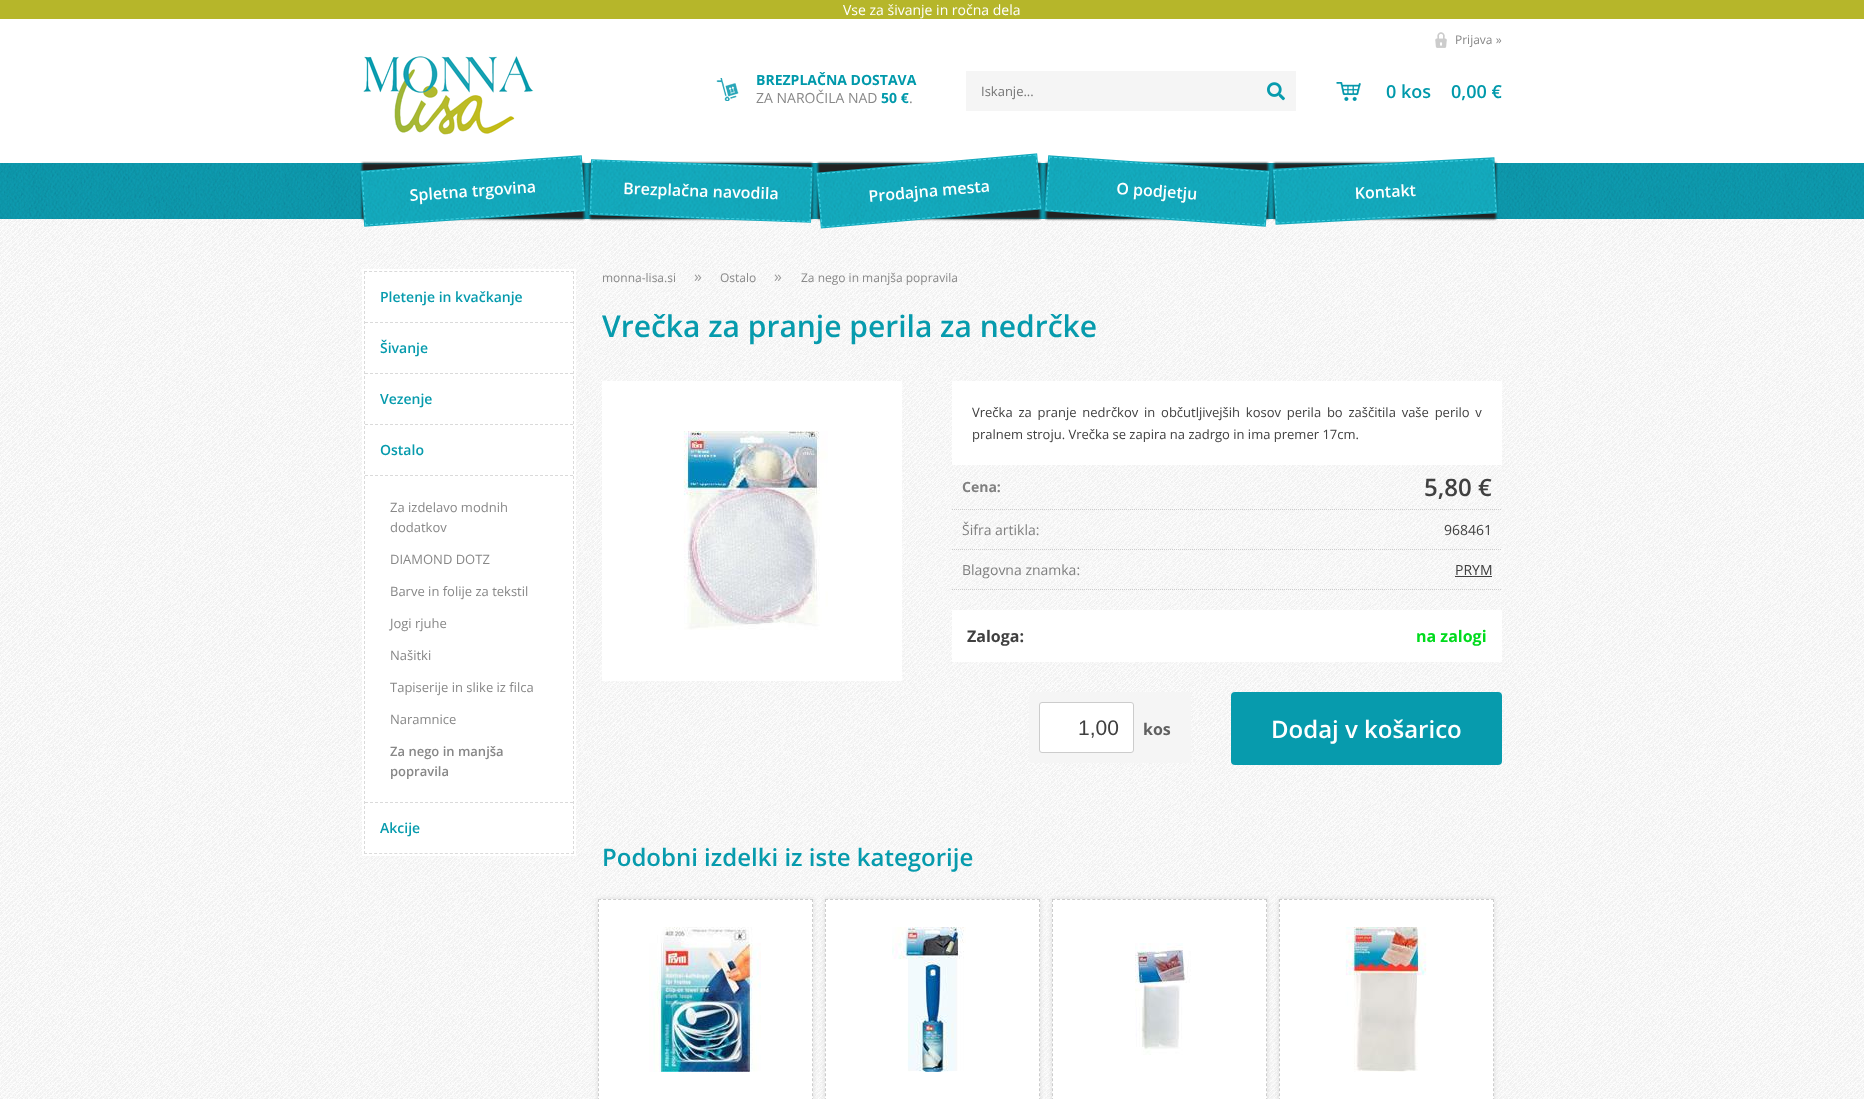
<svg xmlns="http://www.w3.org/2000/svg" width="1864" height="1099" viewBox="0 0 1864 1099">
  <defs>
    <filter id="blur1" x="-50%" y="-200%" width="200%" height="500%"><feGaussianBlur stdDeviation="1"/></filter>
    <filter id="blur2" x="-50%" y="-200%" width="200%" height="500%"><feGaussianBlur stdDeviation="2.5"/></filter>
  </defs>
  <rect width="100%" height="100%" fill="#ffffff"/>
  <rect x="0" y="0" width="1864" height="19" fill="#b6b62a"/>
  <text x="843" y="15" font-family="Open Sans" font-size="14" fill="#ffffff">Vse za šivanje in ročna dela</text>
  <image x="1435" y="32" width="12" height="16" href="img1.png"/>
  <text x="1455" y="44" font-family="Open Sans" font-size="12" fill="#888888">Prijava »</text>
  <image x="363" y="56" width="171" height="79" href="img2.png"/>
  <image x="716" y="78" width="23" height="23" href="img3.png"/>
  <text x="756" y="85" font-family="Open Sans" font-size="14" font-weight="bold" fill="#0099ab">BREZPLAČNA DOSTAVA</text>
  <text x="756" y="103" font-family="Open Sans" font-size="14" fill="#888888">ZA NAROČILA NAD</text>
  <text x="881" y="103" font-family="Open Sans" font-size="14" font-weight="bold" fill="#0099ab">50 €</text>
  <text x="909" y="103" font-family="Open Sans" font-size="14" fill="#888888">.</text>
  <rect x="966" y="71" width="330" height="40" fill="#f5f5f5"/>
  <text x="981" y="96" font-family="Open Sans" font-size="13" fill="#757575">Iskanje...</text>
  <image x="1267" y="82" width="18" height="19" href="img4.png"/>
  <image x="1336" y="82" width="25" height="19" href="img5.png"/>
  <text x="1386" y="98" font-family="Open Sans" font-size="18" font-weight="600" fill="#0099ab">0 kos</text>
  <text x="1451" y="98" font-family="Open Sans" font-size="18" font-weight="600" fill="#0099ab">0,00 €</text>
  <image x="0" y="163" width="1864" height="56" href="img6.png"/>
  <image x="0" y="219" width="1864" height="880" href="img12.png"/>
  <rect x="362" y="163" width="222" height="56" fill="#222222" filter="url(#blur1)"/>
  <image x="360" y="155" width="226" height="72" href="img7.png"/>
  <path d="M361.5 172L581 157" fill="none" stroke="#3ed0e3" stroke-dasharray="3 2.05"/>
  <path d="M580.5 156.5L584.5 210.5" fill="none" stroke="#3ed0e3" stroke-dasharray="3 2.1"/>
  <path d="M365 225L585 210" fill="none" stroke="#3ed0e3" stroke-dasharray="3 2.05"/>
  <path d="M362 171.5L365.5 225.5" fill="none" stroke="#3ed0e3" stroke-dasharray="3 2.1"/>
  <text x="410" y="201" transform="rotate(-4 410 201)" font-family="Open Sans" font-size="16" font-weight="600" fill="#ffffff">Spletna trgovina</text>
  <rect x="590" y="163" width="222" height="56" fill="#222222" filter="url(#blur1)"/>
  <image x="589" y="159" width="224" height="64" href="img8.png"/>
  <path d="M592 160.5L812 168.5" fill="none" stroke="#3ed0e3" stroke-dasharray="3 2.05"/>
  <path d="M811.5 168L810 222" fill="none" stroke="#3ed0e3" stroke-dasharray="3 2.1"/>
  <path d="M590 213.5L810.5 221.5" fill="none" stroke="#3ed0e3" stroke-dasharray="3 2.05"/>
  <path d="M592.5 160L590.5 214" fill="none" stroke="#3ed0e3" stroke-dasharray="3 2.1"/>
  <text x="623" y="194" transform="rotate(2 623 194)" font-family="Open Sans" font-size="16" font-weight="600" fill="#ffffff">Brezplačna navodila</text>
  <rect x="818" y="163" width="222" height="56" fill="#222222" filter="url(#blur1)"/>
  <image x="816" y="153" width="226" height="76" href="img9.png"/>
  <path d="M817 174L1036.5 155" fill="none" stroke="#3ed0e3" stroke-dasharray="3 2.05"/>
  <path d="M1036 154.5L1040.5 208.5" fill="none" stroke="#3ed0e3" stroke-dasharray="3 2.1"/>
  <path d="M821.5 227L1041 208" fill="none" stroke="#3ed0e3" stroke-dasharray="3 2.05"/>
  <path d="M817.5 173.5L822 227.5" fill="none" stroke="#3ed0e3" stroke-dasharray="3 2.1"/>
  <text x="869" y="202" transform="rotate(-5 869 202)" font-family="Open Sans" font-size="16" font-weight="600" fill="#ffffff">Prodajna mesta</text>
  <rect x="1046" y="163" width="222" height="56" fill="#222222" filter="url(#blur1)"/>
  <image x="1044" y="155" width="226" height="72" href="img10.png"/>
  <path d="M1049 157L1269 172" fill="none" stroke="#3ed0e3" stroke-dasharray="3 2.05"/>
  <path d="M1268.5 171.5L1264.5 225.5" fill="none" stroke="#3ed0e3" stroke-dasharray="3 2.1"/>
  <path d="M1045.5 210L1265 225" fill="none" stroke="#3ed0e3" stroke-dasharray="3 2.05"/>
  <path d="M1049.5 156.5L1046 210.5" fill="none" stroke="#3ed0e3" stroke-dasharray="3 2.1"/>
  <text x="1116" y="194" transform="rotate(4 1116 194)" font-family="Open Sans" font-size="16" font-weight="600" fill="#ffffff">O podjetju</text>
  <rect x="1274" y="163" width="222" height="56" fill="#222222" filter="url(#blur1)"/>
  <image x="1272" y="157" width="226" height="68" href="img11.png"/>
  <path d="M1273.5 170.5L1493.5 159" fill="none" stroke="#3ed0e3" stroke-dasharray="3 2.05"/>
  <path d="M1493 158.5L1496 212" fill="none" stroke="#3ed0e3" stroke-dasharray="3 2.1"/>
  <path d="M1276.5 223L1496.5 211.5" fill="none" stroke="#3ed0e3" stroke-dasharray="3 2.05"/>
  <path d="M1274 170L1277 223.5" fill="none" stroke="#3ed0e3" stroke-dasharray="3 2.1"/>
  <text x="1355" y="199" transform="rotate(-3 1355 199)" font-family="Open Sans" font-size="16" font-weight="600" fill="#ffffff">Kontakt</text>
  <rect x="362" y="269" width="214" height="587" fill="#ffffff"/>
  <path d="M364 271.5H574" fill="none" stroke="#dadada" stroke-dasharray="3 2.05"/>
  <path d="M573.5 271V854" fill="none" stroke="#dadada" stroke-dasharray="3 2"/>
  <path d="M364 853.5H574" fill="none" stroke="#dadada" stroke-dasharray="3 2.05"/>
  <path d="M364.5 271V854" fill="none" stroke="#dadada" stroke-dasharray="3 2"/>
  <path d="M365 322.5H573" fill="none" stroke="#dadada" stroke-dasharray="3 2"/>
  <text x="380" y="302" font-family="Open Sans" font-size="14" font-weight="600" fill="#079bad">Pletenje in kvačkanje</text>
  <path d="M365 373.5H573" fill="none" stroke="#dadada" stroke-dasharray="3 2"/>
  <text x="380" y="353" font-family="Open Sans" font-size="14" font-weight="600" fill="#079bad">Šivanje</text>
  <path d="M365 424.5H573" fill="none" stroke="#dadada" stroke-dasharray="3 2"/>
  <text x="380" y="404" font-family="Open Sans" font-size="14" font-weight="600" fill="#079bad">Vezenje</text>
  <path d="M365 475.5H573" fill="none" stroke="#dadada" stroke-dasharray="3 2"/>
  <text x="380" y="455" font-family="Open Sans" font-size="14" font-weight="600" fill="#079bad">Ostalo</text>
  <path d="M365 802.5H573" fill="none" stroke="#dadada" stroke-dasharray="3 2"/>
  <text x="390" y="512" font-family="Open Sans" font-size="13" fill="#888888">Za izdelavo modnih</text>
  <text x="390" y="532" font-family="Open Sans" font-size="13" fill="#888888">dodatkov</text>
  <text x="390" y="564" font-family="Open Sans" font-size="13" fill="#888888">DIAMOND DOTZ</text>
  <text x="390" y="596" font-family="Open Sans" font-size="13" fill="#888888">Barve in folije za tekstil</text>
  <text x="390" y="628" font-family="Open Sans" font-size="13" fill="#888888">Jogi rjuhe</text>
  <text x="390" y="660" font-family="Open Sans" font-size="13" fill="#888888">Našitki</text>
  <text x="390" y="692" font-family="Open Sans" font-size="13" fill="#888888">Tapiserije in slike iz filca</text>
  <text x="390" y="724" font-family="Open Sans" font-size="13" fill="#888888">Naramnice</text>
  <text x="390" y="756" font-family="Open Sans" font-size="13" font-weight="600" fill="#888888">Za nego in manjša</text>
  <text x="390" y="776" font-family="Open Sans" font-size="13" font-weight="600" fill="#888888">popravila</text>
  <text x="380" y="833" font-family="Open Sans" font-size="14" font-weight="600" fill="#079bad">Akcije</text>
  <text x="602" y="282" font-family="Open Sans" font-size="12" fill="#888888">monna-lisa.si</text>
  <text x="694" y="282" font-family="Open Sans" font-size="16" fill="#999999">»</text>
  <text x="720" y="282" font-family="Open Sans" font-size="12" fill="#888888">Ostalo</text>
  <text x="774" y="282" font-family="Open Sans" font-size="16" fill="#999999">»</text>
  <text x="801" y="282" font-family="Open Sans" font-size="12" fill="#888888">Za nego in manjša popravila</text>
  <text x="602" y="337" font-family="Open Sans" font-size="30" font-weight="600" fill="#079bad">Vrečka za pranje perila za nedrčke</text>
  <rect x="602" y="381" width="300" height="300" fill="#ffffff"/>
  <image x="683" y="431" width="145" height="199" href="img13.png"/>
  <rect x="952" y="381" width="550" height="84" fill="#ffffff"/>
  <text x="972" y="417" word-spacing="2.4" font-family="Open Sans" font-size="13" fill="#404040">Vrečka za pranje nedrčkov in občutljivejših kosov perila bo zaščitila vaše perilo v</text>
  <text x="972" y="439" font-family="Open Sans" font-size="13" fill="#404040">pralnem stroju. Vrečka se zapira na zadrgo in ima premer 17cm.</text>
  <path d="M952 509.5H1502" fill="none" stroke="#cccccc" stroke-dasharray="1 1"/>
  <text x="962" y="492" font-family="Open Sans" font-size="14" font-weight="bold" fill="#808080">Cena:</text>
  <text x="1424" y="496" font-family="Open Sans" font-size="24" font-weight="600" fill="#404040">5,80 €</text>
  <path d="M952 549.5H1502" fill="none" stroke="#cccccc" stroke-dasharray="1 1"/>
  <text x="962" y="535" font-family="Open Sans" font-size="14" fill="#808080">Šifra artikla:</text>
  <text x="1444" y="535" font-family="Open Sans" font-size="14" fill="#404040">968461</text>
  <path d="M952 589.5H1502" fill="none" stroke="#cccccc" stroke-dasharray="1 1"/>
  <text x="962" y="575" font-family="Open Sans" font-size="14" fill="#808080">Blagovna znamka:</text>
  <text x="1455" y="575" font-family="Open Sans" font-size="14" fill="#404040">PRYM</text>
  <rect x="1455" y="576" width="37" height="1" fill="#404040"/>
  <rect x="952" y="610" width="550" height="52" fill="#ffffff"/>
  <text x="967" y="642" font-family="Open Sans" font-size="16" font-weight="bold" fill="#404040">Zaloga:</text>
  <text x="1416" y="642" font-family="Open Sans" font-size="16" font-weight="bold" fill="#00db1d">na zalogi</text>
  <rect x="1029" y="692" width="162" height="71" rx="3" fill="#f5f5f5"/>
  <rect x="1039.5" y="702.5" width="94" height="50" rx="2.5" fill="#ffffff" stroke="#cccccc"/>
  <text x="1078" y="735" font-family="Liberation Sans" font-size="21" fill="#404040">1,00</text>
  <text x="1143" y="735" font-family="Open Sans" font-size="16" font-weight="bold" fill="#606060">kos</text>
  <rect x="1231" y="692" width="271" height="73" rx="4" fill="#079bad"/>
  <text x="1271" y="738" font-family="Open Sans" font-size="24" font-weight="600" fill="#ffffff">Dodaj v košarico</text>
  <text x="602" y="866" font-family="Open Sans" font-size="24" font-weight="600" fill="#079bad">Podobni izdelki iz iste kategorije</text>
  <rect x="598" y="899" width="215" height="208" fill="#dadada" filter="url(#blur2)"/>
  <rect x="598" y="899" width="215" height="200" fill="#ffffff"/>
  <path d="M598 899.5H813" fill="none" stroke="#cccccc" stroke-dasharray="3 2.05"/>
  <path d="M812.5 899V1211" fill="none" stroke="#cccccc" stroke-dasharray="3 1.98"/>
  <path d="M598.5 899V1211" fill="none" stroke="#cccccc" stroke-dasharray="3 1.98"/>
  <image x="649" y="927" width="112" height="145" href="img14.png"/>
  <rect x="825" y="899" width="215" height="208" fill="#dadada" filter="url(#blur2)"/>
  <rect x="825" y="899" width="215" height="200" fill="#ffffff"/>
  <path d="M825 899.5H1040" fill="none" stroke="#cccccc" stroke-dasharray="3 2.05"/>
  <path d="M1039.5 899V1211" fill="none" stroke="#cccccc" stroke-dasharray="3 1.98"/>
  <path d="M825.5 899V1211" fill="none" stroke="#cccccc" stroke-dasharray="3 1.98"/>
  <image x="892" y="927" width="74" height="145" href="img15.png"/>
  <rect x="1052" y="899" width="215" height="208" fill="#dadada" filter="url(#blur2)"/>
  <rect x="1052" y="899" width="215" height="200" fill="#ffffff"/>
  <path d="M1052 899.5H1267" fill="none" stroke="#cccccc" stroke-dasharray="3 2.05"/>
  <path d="M1266.5 899V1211" fill="none" stroke="#cccccc" stroke-dasharray="3 1.98"/>
  <path d="M1052.5 899V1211" fill="none" stroke="#cccccc" stroke-dasharray="3 1.98"/>
  <image x="1135" y="943" width="56" height="112" href="img16.png"/>
  <rect x="1279" y="899" width="215" height="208" fill="#dadada" filter="url(#blur2)"/>
  <rect x="1279" y="899" width="215" height="200" fill="#ffffff"/>
  <path d="M1279 899.5H1494" fill="none" stroke="#cccccc" stroke-dasharray="3 2.05"/>
  <path d="M1493.5 899V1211" fill="none" stroke="#cccccc" stroke-dasharray="3 1.98"/>
  <path d="M1279.5 899V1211" fill="none" stroke="#cccccc" stroke-dasharray="3 1.98"/>
  <image x="1345" y="927" width="82" height="145" href="img17.png"/>
</svg>
